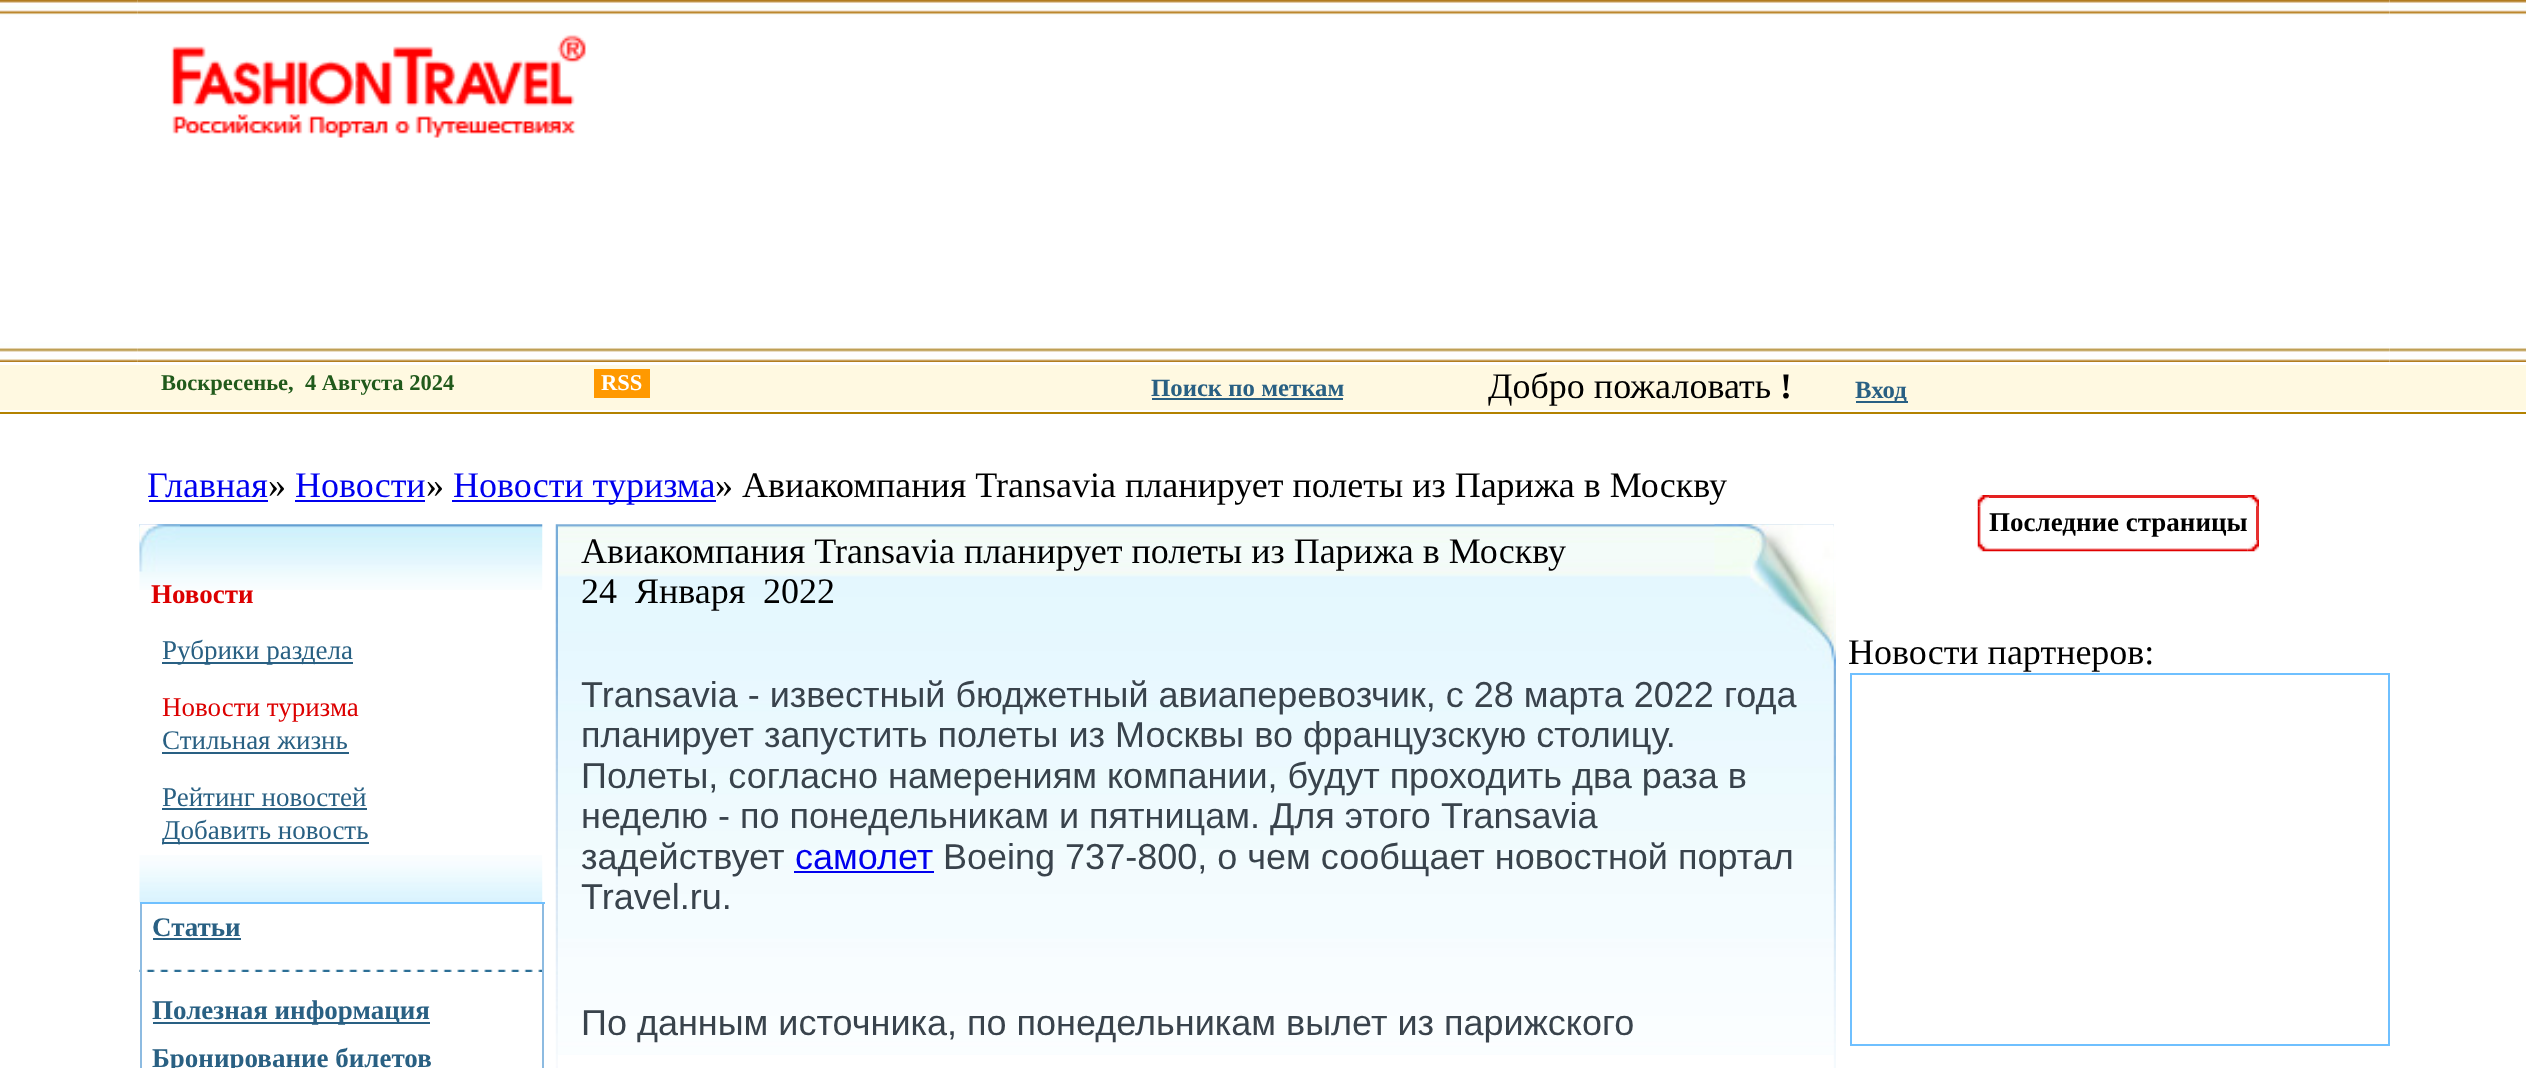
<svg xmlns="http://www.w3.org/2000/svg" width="2526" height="1068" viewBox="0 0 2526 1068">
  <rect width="100%" height="100%" fill="#ffffff"/>
  <image x="0" y="0" width="138" height="362" href="img1.png"/>
  <image x="137" y="0" width="2253" height="362" href="img2.png"/>
  <image x="171" y="34" width="415" height="104" href="img3.png"/>
  <image x="2389" y="0" width="137" height="362" href="img4.png"/>
  <rect x="0" y="365" width="2526" height="45" fill="#fff9e1"/>
  <text x="161" y="390" font-family="Liberation Serif" font-size="22.5" font-weight="bold" fill="#215a1b" xml:space="preserve">Воскресенье,  4 Августа 2024</text>
  <rect x="594" y="369" width="56" height="29" fill="#ff9900"/>
  <text x="601" y="390" font-family="Liberation Serif" font-size="22.5" font-weight="bold" fill="#ffffff">RSS</text>
  <text x="1151" y="396" font-family="Liberation Serif" font-size="24.75" font-weight="bold" fill="#296083">Поиск по меткам</text>
  <rect x="1152" y="398" width="191" height="2" fill="#296083"/>
  <text x="1488" y="398" font-family="Liberation Serif" font-size="36" fill="#000000">Добро пожаловать</text>
  <text x="1780" y="398" font-family="Liberation Serif" font-size="36" font-weight="bold" fill="#000000">!</text>
  <rect x="1856" y="401" width="52" height="2" fill="#296083"/>
  <text x="1855" y="398" font-family="Liberation Serif" font-size="24.75" font-weight="bold" fill="#296083">Вход</text>
  <rect x="0" y="412" width="2526" height="2" fill="#b38200"/>
  <text x="147" y="497" font-family="Liberation Serif" font-size="36" fill="#0000ee">Главная</text>
  <rect x="149" y="500" width="119" height="2" fill="#0000ee"/>
  <text x="268" y="497" font-family="Liberation Serif" font-size="36" fill="#000000">»</text>
  <text x="295" y="497" font-family="Liberation Serif" font-size="36" fill="#0000ee">Новости</text>
  <rect x="295" y="500" width="130" height="2" fill="#0000ee"/>
  <text x="426" y="497" font-family="Liberation Serif" font-size="36" fill="#000000">»</text>
  <rect x="452" y="500" width="264" height="2" fill="#0000ee"/>
  <text x="453" y="497" font-family="Liberation Serif" font-size="36" fill="#0000ee">Новости туризма</text>
  <text x="715" y="497" font-family="Liberation Serif" font-size="36" fill="#000000">» Авиакомпания Transavia планирует полеты из Парижа в Москву</text>
  <image x="139" y="855" width="404" height="48" href="img6.png"/>
  <rect x="542" y="902" width="2" height="166" fill="#8dbbe1"/>
  <image x="139" y="969" width="403" height="3" href="img8.png"/>
  <rect x="140" y="902" width="2" height="166" fill="#8dbbe1"/>
  <rect x="140" y="902" width="405" height="2" fill="#6fc0ff"/>
  <image x="139" y="524" width="404" height="66" href="img5.png"/>
  <image x="139" y="524" width="41" height="48" href="img7.png"/>
  <text x="151" y="603" font-family="Liberation Serif" font-size="27" font-weight="bold" fill="#dc0000">Новости</text>
  <rect x="162" y="662" width="191" height="2" fill="#296083"/>
  <text x="162" y="659" font-family="Liberation Serif" font-size="27" fill="#296083">Рубрики раздела</text>
  <text x="162" y="716" font-family="Liberation Serif" font-size="27" fill="#dc0000">Новости туризма</text>
  <text x="162" y="749" font-family="Liberation Serif" font-size="27" fill="#296083">Стильная жизнь</text>
  <rect x="162" y="752" width="187" height="2" fill="#296083"/>
  <text x="162" y="806" font-family="Liberation Serif" font-size="27" fill="#296083">Рейтинг новостей</text>
  <rect x="162" y="808" width="205" height="2" fill="#296083"/>
  <rect x="162" y="842" width="207" height="2" fill="#296083"/>
  <text x="162" y="839" font-family="Liberation Serif" font-size="27" fill="#296083">Добавить новость</text>
  <text x="152" y="936" font-family="Liberation Serif" font-size="27" font-weight="bold" fill="#296083">Статьи</text>
  <rect x="153" y="938" width="88" height="2" fill="#296083"/>
  <rect x="153" y="1022" width="277" height="2" fill="#296083"/>
  <text x="152" y="1019" font-family="Liberation Serif" font-size="27" font-weight="bold" fill="#296083">Полезная информация</text>
  <text x="152" y="1067" font-family="Liberation Serif" font-size="27" font-weight="bold" fill="#296083">Бронирование билетов</text>
  <image x="555" y="524" width="3" height="544" href="img9.png"/>
  <image x="558" y="524" width="1276" height="531" href="img10.png"/>
  <image x="1714" y="524" width="120" height="148" href="img11.png"/>
  <text x="581" y="563" font-family="Liberation Serif" font-size="36" fill="#000000">Авиакомпания Transavia планирует полеты из Парижа в Москву</text>
  <text x="581" y="603" font-family="Liberation Serif" font-size="36" fill="#000000">24</text>
  <text x="635" y="603" font-family="Liberation Serif" font-size="36" fill="#000000">Января</text>
  <text x="763" y="603" font-family="Liberation Serif" font-size="36" fill="#000000">2022</text>
  <text x="581" y="707" font-family="Liberation Sans" font-size="36" fill="#39434c">Transavia - известный бюджетный авиаперевозчик, с 28 марта 2022 года</text>
  <text x="581" y="747" font-family="Liberation Sans" font-size="36" fill="#39434c">планирует запустить полеты из Москвы во французскую столицу.</text>
  <text x="581" y="788" font-family="Liberation Sans" font-size="36" fill="#39434c">Полеты, согласно намерениям компании, будут проходить два раза в</text>
  <text x="581" y="828" font-family="Liberation Sans" font-size="36" fill="#39434c">неделю - по понедельникам и пятницам. Для этого Transavia</text>
  <text x="581" y="869" font-family="Liberation Sans" font-size="36" fill="#39434c">задействует</text>
  <text x="795" y="869" font-family="Liberation Sans" font-size="36" fill="#0000ee">самолет</text>
  <rect x="794" y="871" width="140" height="2" fill="#0000ee"/>
  <text x="943" y="869" font-family="Liberation Sans" font-size="36" fill="#39434c">Boeing 737-800, о чем сообщает новостной портал</text>
  <text x="581" y="909" font-family="Liberation Sans" font-size="36" fill="#39434c">Travel.ru.</text>
  <text x="581" y="1035" font-family="Liberation Sans" font-size="36" fill="#39434c">По данным источника, по понедельникам вылет из парижского</text>
  <image x="1833" y="524" width="3" height="544" href="img12.png"/>
  <image x="1977" y="506" width="4" height="34" href="img15.png"/>
  <image x="1977" y="495" width="12" height="12" href="img13.png"/>
  <rect x="1989" y="495" width="259" height="3" fill="#e42121"/>
  <rect x="2256" y="506" width="3" height="34" fill="#e63030"/>
  <image x="2247" y="495" width="12" height="12" href="img14.png"/>
  <text x="1989" y="531" font-family="Liberation Serif" font-size="27" font-weight="bold" fill="#000000">Последние страницы</text>
  <image x="1977" y="540" width="12" height="12" href="img16.png"/>
  <image x="1989" y="548" width="259" height="4" href="img17.png"/>
  <image x="2247" y="540" width="12" height="12" href="img18.png"/>
  <text x="1848" y="664" font-family="Liberation Serif" font-size="36" fill="#000000">Новости партнеров:</text>
  <rect x="1851" y="674" width="538" height="371" fill="none" stroke="#6fc0ff" stroke-width="2"/>
</svg>
